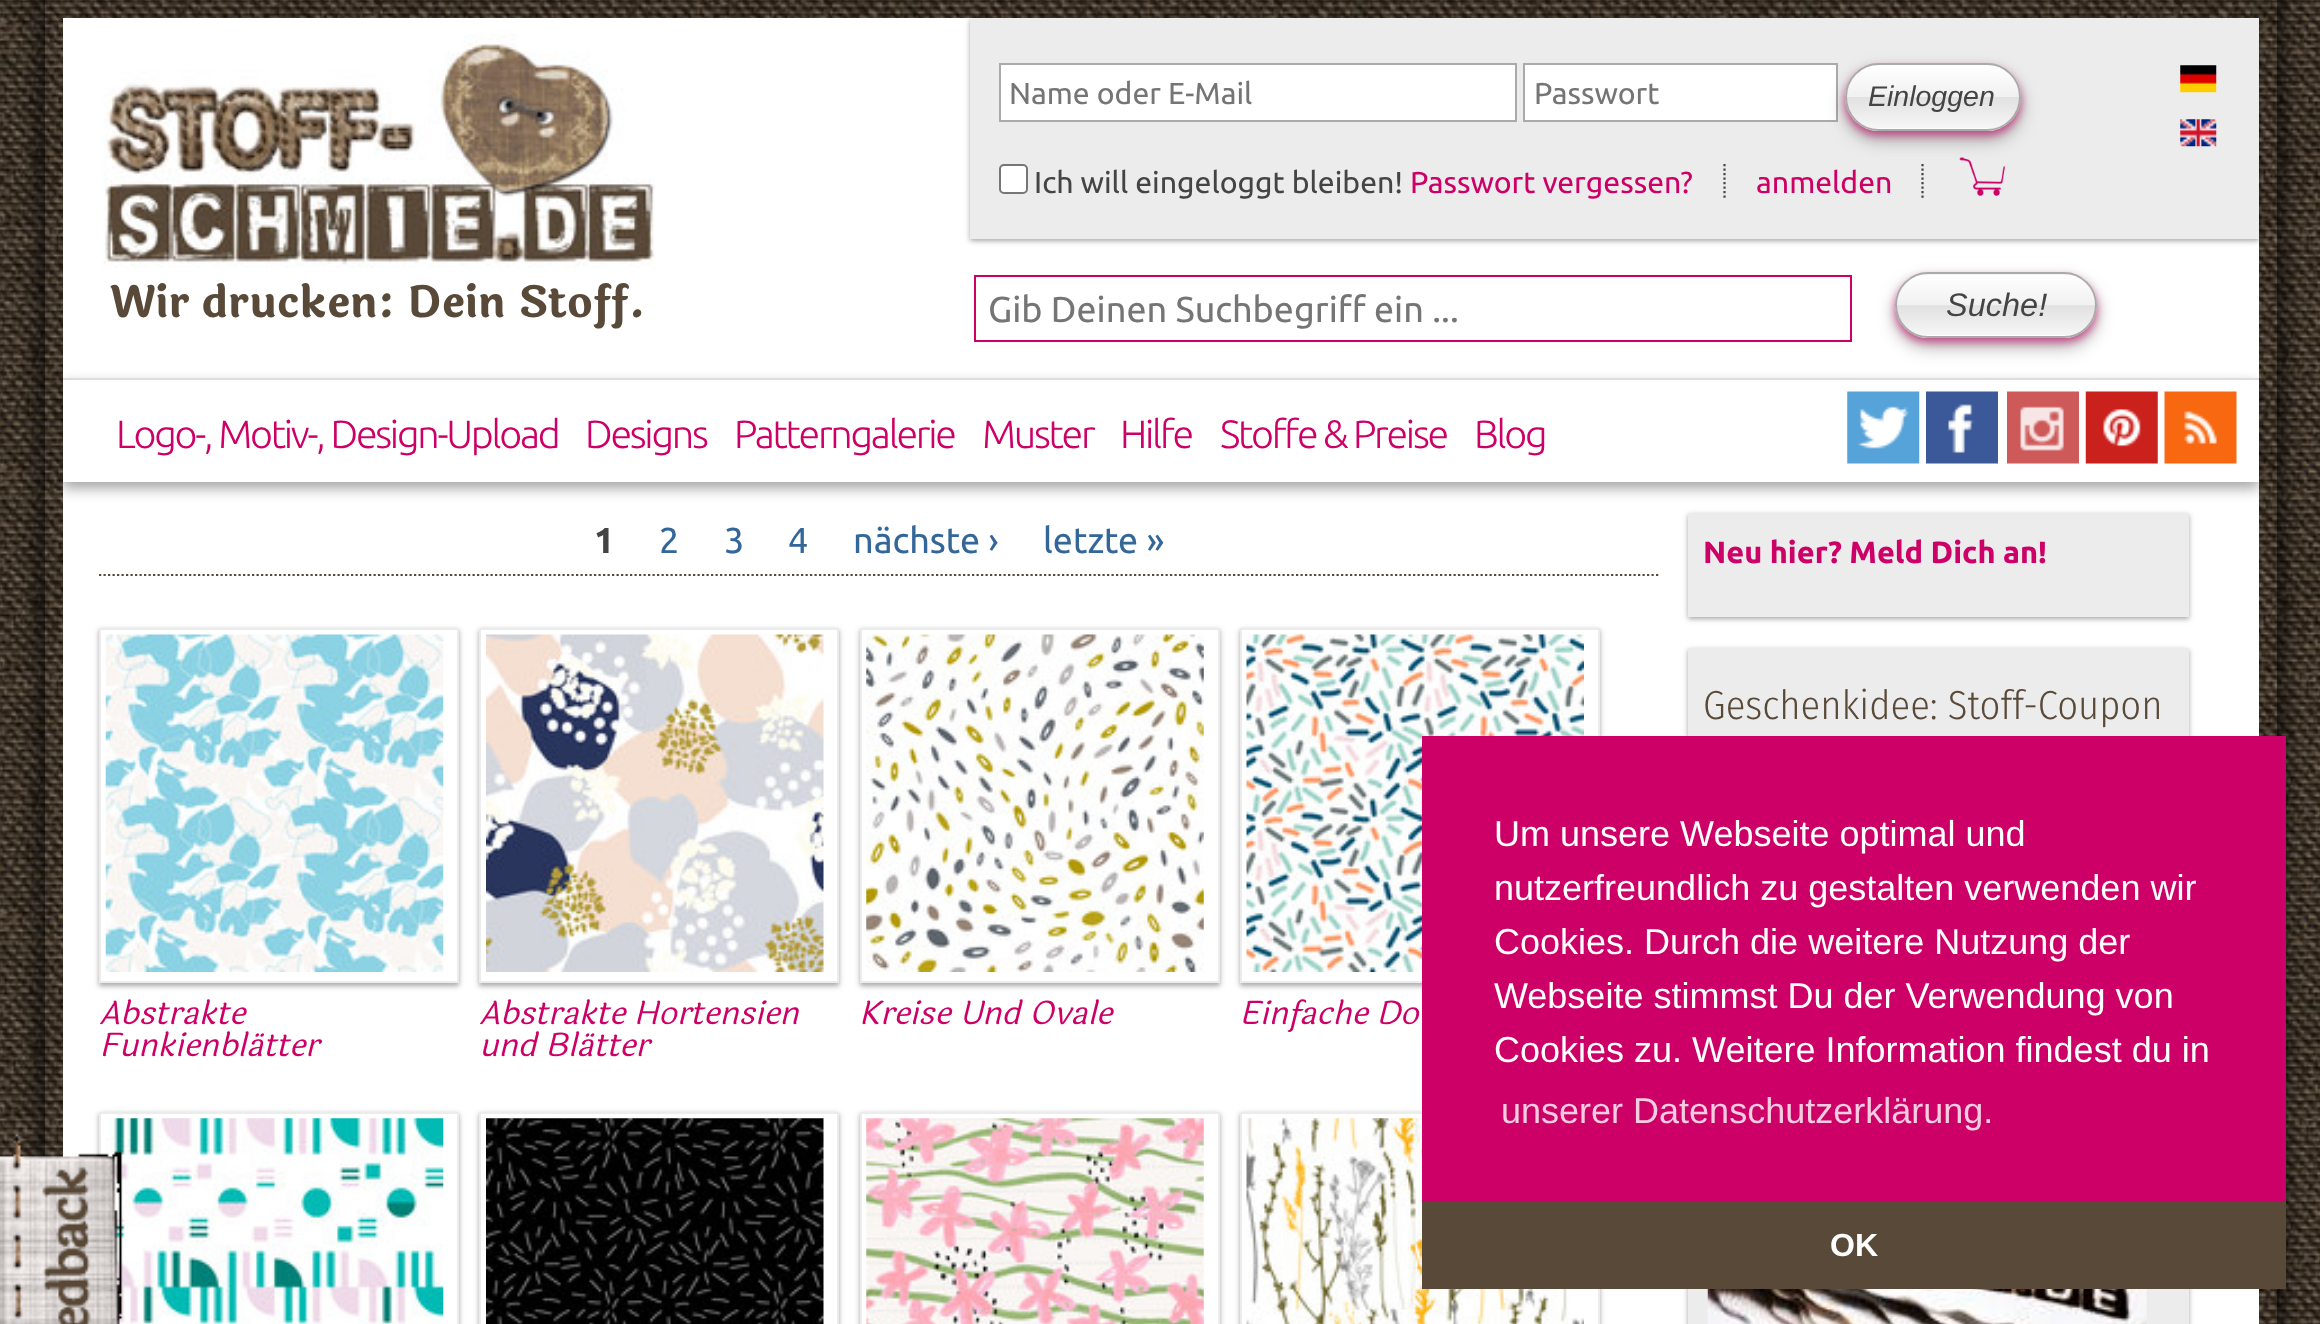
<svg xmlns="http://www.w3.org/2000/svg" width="2320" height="1324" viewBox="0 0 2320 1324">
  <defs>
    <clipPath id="clip1"><path d="M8 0H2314V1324H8ZM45 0H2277V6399H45Z" clip-rule="evenodd"/></clipPath>
    <filter id="blur1" x="-50%" y="-200%" width="200%" height="500%"><feGaussianBlur stdDeviation="9"/></filter>
    <filter id="blur2" x="-50%" y="-200%" width="200%" height="500%"><feGaussianBlur stdDeviation="2"/></filter>
    <filter id="blur3" x="-50%" y="-200%" width="200%" height="500%"><feGaussianBlur stdDeviation="3.5"/></filter>
    <filter id="blur4" x="-50%" y="-200%" width="200%" height="500%"><feGaussianBlur stdDeviation="4.5"/></filter>
    <clipPath id="clip2"><rect x="1845" y="63" width="176" height="68" rx="34"/></clipPath>
    <linearGradient id="g1" gradientUnits="userSpaceOnUse" x1="1933" y1="65" x2="1933" y2="128"><stop offset="0" stop-color="#ffffff"/><stop offset="0.5" stop-color="#f1f1f1"/><stop offset="0.51" stop-color="#e1e1e1"/><stop offset="1" stop-color="#f6f6f6"/></linearGradient>
    <linearGradient id="g2" gradientUnits="userSpaceOnUse" x1="1933" y1="128" x2="1933" y2="191"><stop offset="0" stop-color="#ffffff"/><stop offset="0.5" stop-color="#f1f1f1"/><stop offset="0.51" stop-color="#e1e1e1"/><stop offset="1" stop-color="#f6f6f6"/></linearGradient>
    <clipPath id="clip3"><rect x="1895" y="272" width="202" height="66" rx="33"/></clipPath>
    <linearGradient id="g3" gradientUnits="userSpaceOnUse" x1="1996" y1="214" x2="1996" y2="275"><stop offset="0" stop-color="#ffffff"/><stop offset="0.5" stop-color="#f1f1f1"/><stop offset="0.51" stop-color="#e1e1e1"/><stop offset="1" stop-color="#f6f6f6"/></linearGradient>
    <linearGradient id="g4" gradientUnits="userSpaceOnUse" x1="1996" y1="275" x2="1996" y2="335"><stop offset="0" stop-color="#ffffff"/><stop offset="0.5" stop-color="#f1f1f1"/><stop offset="0.51" stop-color="#e1e1e1"/><stop offset="1" stop-color="#f6f6f6"/></linearGradient>
    <linearGradient id="g5" gradientUnits="userSpaceOnUse" x1="1996" y1="335" x2="1996" y2="396"><stop offset="0" stop-color="#ffffff"/><stop offset="0.5" stop-color="#f1f1f1"/><stop offset="0.51" stop-color="#e1e1e1"/><stop offset="1" stop-color="#f6f6f6"/></linearGradient>
    <clipPath id="clip4"><path d="M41 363H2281V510H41ZM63 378H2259V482H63Z" clip-rule="evenodd"/></clipPath>
    <filter id="blur5" x="-50%" y="-200%" width="200%" height="500%"><feGaussianBlur stdDeviation="7"/></filter>
    <clipPath id="clip5"><path d="M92 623H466V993H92ZM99 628H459V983H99Z" clip-rule="evenodd"/></clipPath>
    <clipPath id="clip6"><path d="M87 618H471V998H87ZM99 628H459V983H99Z" clip-rule="evenodd"/></clipPath>
    <clipPath id="clip7"><path d="M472 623H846V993H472ZM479 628H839V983H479Z" clip-rule="evenodd"/></clipPath>
    <clipPath id="clip8"><path d="M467 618H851V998H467ZM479 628H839V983H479Z" clip-rule="evenodd"/></clipPath>
    <clipPath id="clip9"><path d="M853 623H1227V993H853ZM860 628H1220V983H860Z" clip-rule="evenodd"/></clipPath>
    <clipPath id="clip10"><path d="M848 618H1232V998H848ZM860 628H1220V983H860Z" clip-rule="evenodd"/></clipPath>
    <clipPath id="clip11"><path d="M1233 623H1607V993H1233ZM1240 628H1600V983H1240Z" clip-rule="evenodd"/></clipPath>
    <clipPath id="clip12"><path d="M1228 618H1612V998H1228ZM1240 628H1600V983H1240Z" clip-rule="evenodd"/></clipPath>
    <clipPath id="clip13"><path d="M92 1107H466V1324H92ZM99 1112H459V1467H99Z" clip-rule="evenodd"/></clipPath>
    <clipPath id="clip14"><path d="M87 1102H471V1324H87ZM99 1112H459V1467H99Z" clip-rule="evenodd"/></clipPath>
    <clipPath id="clip15"><path d="M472 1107H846V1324H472ZM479 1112H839V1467H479Z" clip-rule="evenodd"/></clipPath>
    <clipPath id="clip16"><path d="M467 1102H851V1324H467ZM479 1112H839V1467H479Z" clip-rule="evenodd"/></clipPath>
    <clipPath id="clip17"><path d="M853 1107H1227V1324H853ZM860 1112H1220V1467H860Z" clip-rule="evenodd"/></clipPath>
    <clipPath id="clip18"><path d="M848 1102H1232V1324H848ZM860 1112H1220V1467H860Z" clip-rule="evenodd"/></clipPath>
    <clipPath id="clip19"><path d="M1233 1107H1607V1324H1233ZM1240 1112H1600V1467H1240Z" clip-rule="evenodd"/></clipPath>
    <clipPath id="clip20"><path d="M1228 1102H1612V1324H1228ZM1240 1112H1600V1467H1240Z" clip-rule="evenodd"/></clipPath>
  </defs>
  <rect width="100%" height="100%" fill="#ffffff"/>
  <image x="0" y="0" width="2320" height="1324" href="img1.png"/>
  <g clip-path="url(#clip1)">
    <rect x="36" y="-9" width="2250" height="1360" fill="#000000" fill-opacity="0.6" filter="url(#blur1)"/>
  </g>
  <rect x="63" y="18" width="2196" height="1306" fill="#ffffff"/>
  <rect x="970" y="20" width="1289" height="221" fill="#000000" fill-opacity="0.24" filter="url(#blur2)"/>
  <rect x="970" y="20" width="1289" height="221" fill="#000000" fill-opacity="0.12" filter="url(#blur3)"/>
  <rect x="970" y="18" width="1289" height="221" fill="#ececec"/>
  <rect x="1000" y="64" width="516" height="57" fill="#ffffff" stroke="#aaaaaa" stroke-width="2"/>
  <text x="1009" y="104" font-family="Ubuntu" font-size="30.25" fill="#757575">Name oder E-Mail</text>
  <rect x="1524" y="64" width="313" height="57" fill="#ffffff" stroke="#aaaaaa" stroke-width="2"/>
  <text x="1534" y="104" font-family="Ubuntu" font-size="30.25" fill="#757575">Passwort</text>
  <path d="M1922.5 164V200" fill="none" stroke="#444444" stroke-width="2.2" stroke-dasharray="2.25 2.25"/>
  <rect x="1845" y="72" width="176" height="68" rx="34" fill="#050505" fill-opacity="0.3" filter="url(#blur1)"/>
  <rect x="1845" y="68" width="176" height="67" rx="33.5" fill="#cc0066" fill-opacity="0.6" filter="url(#blur4)"/>
  <g clip-path="url(#clip2)">
    <rect x="1845" y="65" width="176" height="63" fill="url(#g1)"/>
    <rect x="1865" y="128" width="136" height="3" fill="url(#g2)"/>
  </g>
  <rect x="1846" y="64" width="174" height="66" rx="33" fill="none" stroke="#aaaaaa" stroke-width="2"/>
  <text x="1868" y="106" font-family="Liberation Sans" font-size="28.5" font-style="italic" fill="#444444">Einloggen</text>
  <rect x="1000" y="165" width="27" height="28" rx="4" fill="#ffffff" stroke="#767676" stroke-width="2"/>
  <text x="1034" y="193" font-family="Ubuntu" font-size="30.25" fill="#444444">Ich will eingeloggt bleiben!</text>
  <text x="1410" y="193" font-family="Ubuntu" font-size="30.25" fill="#cc0066">Passwort vergessen?</text>
  <text x="1756" y="193" font-family="Ubuntu" font-size="30.25" fill="#cc0066">anmelden</text>
  <path d="M1724.5 164V200" fill="none" stroke="#444444" stroke-width="2.2" stroke-dasharray="2.25 2.25"/>
  <image x="1959" y="157" width="46" height="39" href="img2.png"/>
  <image x="2180" y="65" width="37" height="28" href="img3.png"/>
  <image x="2180" y="119" width="37" height="28" href="img4.png"/>
  <image x="103" y="34" width="552" height="234" href="img5.png"/>
  <text x="110" y="317" font-family="Laila" font-size="43.25" font-weight="bold" fill="#594938">Wir drucken: Dein Stoff.</text>
  <rect x="975" y="276" width="876" height="65" fill="none" stroke="#cc0066" stroke-width="2"/>
  <text x="988" y="322" font-family="Ubuntu" font-size="36" fill="#757575">Gib Deinen Suchbegriff ein ...</text>
  <rect x="1895" y="281" width="202" height="66" rx="33" fill="#050505" fill-opacity="0.3" filter="url(#blur1)"/>
  <rect x="1895" y="277" width="202" height="65" rx="32.5" fill="#cc0066" fill-opacity="0.6" filter="url(#blur4)"/>
  <g clip-path="url(#clip3)">
    <rect x="1914" y="272" width="164" height="3" fill="url(#g3)"/>
    <rect x="1895" y="275" width="202" height="60" fill="url(#g4)"/>
    <rect x="1914" y="335" width="164" height="3" fill="url(#g5)"/>
  </g>
  <rect x="1896" y="273" width="200" height="64" rx="32" fill="none" stroke="#aaaaaa" stroke-width="2"/>
  <text x="1946" y="316" font-family="Liberation Sans" font-size="32.5" font-style="italic" fill="#444444">Suche!</text>
  <g clip-path="url(#clip4)">
    <rect x="63" y="385" width="2196" height="103" fill="#000000" fill-opacity="0.23" filter="url(#blur5)"/>
    <rect x="63" y="385" width="2196" height="103" fill="#000000" fill-opacity="0.16" filter="url(#blur5)"/>
  </g>
  <rect x="63" y="378" width="2196" height="2" fill="#dddddd"/>
  <text x="116" y="448" font-family="Ubuntu" font-size="39.4" font-weight="300" letter-spacing="-2.25" fill="#cc0066">Logo-, Motiv-, Design-Upload</text>
  <text x="585" y="448" font-family="Ubuntu" font-size="39.4" font-weight="300" letter-spacing="-2.25" fill="#cc0066">Designs</text>
  <text x="734" y="448" font-family="Ubuntu" font-size="39.4" font-weight="300" letter-spacing="-2.25" fill="#cc0066">Patterngalerie</text>
  <text x="982" y="448" font-family="Ubuntu" font-size="39.4" font-weight="300" letter-spacing="-2.25" fill="#cc0066">Muster</text>
  <text x="1120" y="448" font-family="Ubuntu" font-size="39.4" font-weight="300" letter-spacing="-2.25" fill="#cc0066">Hilfe</text>
  <text x="1220" y="448" font-family="Ubuntu" font-size="39.4" font-weight="300" letter-spacing="-2.25" fill="#cc0066">Stoffe &amp; Preise</text>
  <text x="1474" y="448" font-family="Ubuntu" font-size="39.4" font-weight="300" letter-spacing="-2.25" fill="#cc0066">Blog</text>
  <image x="1847" y="391" width="73" height="73" href="img6.png"/>
  <image x="1926" y="391" width="72" height="73" href="img7.png"/>
  <image x="2007" y="391" width="72" height="73" href="img8.png"/>
  <image x="2085" y="391" width="73" height="73" href="img9.png"/>
  <image x="2164" y="391" width="73" height="73" href="img10.png"/>
  <path d="M99 575H1660.5" fill="none" stroke="#594938" stroke-width="2.2" stroke-dasharray="2.25 2.25"/>
  <text x="594" y="553" font-family="Ubuntu" font-size="36" font-weight="bold" fill="#444444">1</text>
  <text x="659" y="553" font-family="Ubuntu" font-size="36" fill="#336699">2</text>
  <text x="724" y="553" font-family="Ubuntu" font-size="36" fill="#336699">3</text>
  <text x="788" y="553" font-family="Ubuntu" font-size="36" fill="#336699">4</text>
  <text x="853" y="553" font-family="Ubuntu" font-size="36" fill="#336699">nächste ›</text>
  <text x="1043" y="553" font-family="Ubuntu" font-size="36" fill="#336699">letzte »</text>
  <g clip-path="url(#clip5)">
    <rect x="99" y="630" width="360" height="356" fill="#000000" fill-opacity="0.24" filter="url(#blur2)"/>
  </g>
  <g clip-path="url(#clip6)">
    <rect x="99" y="630" width="360" height="356" fill="#000000" fill-opacity="0.12" filter="url(#blur3)"/>
  </g>
  <rect x="100" y="629" width="358" height="353" fill="none" stroke="#ececec" stroke-width="2"/>
  <image x="105" y="634" width="339" height="338" href="img11.png"/>
  <text x="99" y="1024" font-family="Laila" font-size="32.5" font-style="italic" fill="#cc0066">Abstrakte</text>
  <text x="99" y="1056" font-family="Laila" font-size="32.5" font-style="italic" fill="#cc0066">Funkienblätter</text>
  <g clip-path="url(#clip7)">
    <rect x="479" y="630" width="360" height="356" fill="#000000" fill-opacity="0.24" filter="url(#blur2)"/>
  </g>
  <g clip-path="url(#clip8)">
    <rect x="479" y="630" width="360" height="356" fill="#000000" fill-opacity="0.12" filter="url(#blur3)"/>
  </g>
  <rect x="480" y="629" width="358" height="353" fill="none" stroke="#ececec" stroke-width="2"/>
  <image x="486" y="634" width="338" height="338" href="img12.png"/>
  <text x="479" y="1024" font-family="Laila" font-size="32.5" font-style="italic" fill="#cc0066">Abstrakte Hortensien</text>
  <text x="479" y="1056" font-family="Laila" font-size="32.5" font-style="italic" fill="#cc0066">und Blätter</text>
  <g clip-path="url(#clip9)">
    <rect x="860" y="630" width="360" height="356" fill="#000000" fill-opacity="0.24" filter="url(#blur2)"/>
  </g>
  <g clip-path="url(#clip10)">
    <rect x="860" y="630" width="360" height="356" fill="#000000" fill-opacity="0.12" filter="url(#blur3)"/>
  </g>
  <rect x="861" y="629" width="358" height="353" fill="none" stroke="#ececec" stroke-width="2"/>
  <image x="866" y="634" width="338" height="338" href="img13.png"/>
  <text x="859" y="1024" font-family="Laila" font-size="32.5" font-style="italic" fill="#cc0066">Kreise Und Ovale</text>
  <g clip-path="url(#clip11)">
    <rect x="1240" y="630" width="360" height="356" fill="#000000" fill-opacity="0.24" filter="url(#blur2)"/>
  </g>
  <g clip-path="url(#clip12)">
    <rect x="1240" y="630" width="360" height="356" fill="#000000" fill-opacity="0.12" filter="url(#blur3)"/>
  </g>
  <rect x="1241" y="629" width="358" height="353" fill="none" stroke="#ececec" stroke-width="2"/>
  <image x="1246" y="634" width="338" height="338" href="img14.png"/>
  <text x="1239" y="1024" font-family="Laila" font-size="32.5" font-style="italic" fill="#cc0066">Einfache Do</text>
  <g clip-path="url(#clip13)">
    <rect x="99" y="1114" width="360" height="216" fill="#000000" fill-opacity="0.24" filter="url(#blur2)"/>
  </g>
  <g clip-path="url(#clip14)">
    <rect x="99" y="1114" width="360" height="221" fill="#000000" fill-opacity="0.12" filter="url(#blur3)"/>
  </g>
  <rect x="100" y="1113" width="358" height="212" fill="none" stroke="#ececec" stroke-width="2"/>
  <image x="105" y="1118" width="339" height="206" href="img15.png"/>
  <g clip-path="url(#clip15)">
    <rect x="479" y="1114" width="360" height="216" fill="#000000" fill-opacity="0.24" filter="url(#blur2)"/>
  </g>
  <g clip-path="url(#clip16)">
    <rect x="479" y="1114" width="360" height="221" fill="#000000" fill-opacity="0.12" filter="url(#blur3)"/>
  </g>
  <rect x="480" y="1113" width="358" height="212" fill="none" stroke="#ececec" stroke-width="2"/>
  <image x="486" y="1118" width="338" height="206" href="img16.png"/>
  <g clip-path="url(#clip17)">
    <rect x="860" y="1114" width="360" height="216" fill="#000000" fill-opacity="0.24" filter="url(#blur2)"/>
  </g>
  <g clip-path="url(#clip18)">
    <rect x="860" y="1114" width="360" height="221" fill="#000000" fill-opacity="0.12" filter="url(#blur3)"/>
  </g>
  <rect x="861" y="1113" width="358" height="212" fill="none" stroke="#ececec" stroke-width="2"/>
  <image x="866" y="1118" width="338" height="206" href="img17.png"/>
  <g clip-path="url(#clip19)">
    <rect x="1240" y="1114" width="360" height="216" fill="#000000" fill-opacity="0.24" filter="url(#blur2)"/>
  </g>
  <g clip-path="url(#clip20)">
    <rect x="1240" y="1114" width="360" height="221" fill="#000000" fill-opacity="0.12" filter="url(#blur3)"/>
  </g>
  <rect x="1241" y="1113" width="358" height="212" fill="none" stroke="#ececec" stroke-width="2"/>
  <image x="1246" y="1118" width="338" height="206" href="img18.png"/>
  <rect x="1688" y="515" width="501" height="104" fill="#000000" fill-opacity="0.24" filter="url(#blur2)"/>
  <rect x="1688" y="515" width="501" height="104" fill="#000000" fill-opacity="0.12" filter="url(#blur3)"/>
  <rect x="1688" y="513" width="501" height="104" fill="#ececec"/>
  <text x="1703" y="563" font-family="Ubuntu" font-size="30.75" font-weight="bold" fill="#cc0066">Neu hier? Meld Dich an!</text>
  <rect x="1688" y="650" width="501" height="405" fill="#000000" fill-opacity="0.24" filter="url(#blur2)"/>
  <rect x="1688" y="650" width="501" height="405" fill="#000000" fill-opacity="0.12" filter="url(#blur3)"/>
  <rect x="1688" y="648" width="501" height="88" fill="#ececec"/>
  <text x="1703" y="719" font-family="Fira Sans Condensed" font-size="40.5" font-weight="300" fill="#594938">Geschenkidee: Stoff-Coupon</text>
  <rect x="1688" y="1087" width="501" height="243" fill="#000000" fill-opacity="0.24" filter="url(#blur2)"/>
  <rect x="1688" y="1087" width="501" height="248" fill="#000000" fill-opacity="0.12" filter="url(#blur3)"/>
  <rect x="1688" y="1289" width="501" height="35" fill="#ececec"/>
  <image x="1707" y="1289" width="440" height="35" href="img19.png"/>
  <image x="0" y="1133" width="123" height="191" href="img20.png"/>
  <rect x="1422" y="736" width="864" height="466" fill="#cc0066"/>
  <text x="1494" y="846" font-family="Liberation Sans" font-size="36" fill="#ffffff">Um unsere Webseite optimal und</text>
  <text x="1494" y="900" font-family="Liberation Sans" font-size="36" fill="#ffffff">nutzerfreundlich zu gestalten verwenden wir</text>
  <text x="1494" y="954" font-family="Liberation Sans" font-size="36" fill="#ffffff">Cookies. Durch die weitere Nutzung der</text>
  <text x="1494" y="1008" font-family="Liberation Sans" font-size="36" fill="#ffffff">Webseite stimmst Du der Verwendung von</text>
  <text x="1494" y="1062" font-family="Liberation Sans" font-size="36" fill="#ffffff">Cookies zu. Weitere Information findest du in</text>
  <text x="1501" y="1123" font-family="Liberation Sans" font-size="36" fill="#f5cce0">unserer Datenschutzerklärung.</text>
  <rect x="1422" y="1202" width="864" height="87" fill="#594938"/>
  <text x="1830" y="1256" font-family="Liberation Sans" font-size="32" font-weight="bold" fill="#ffffff">OK</text>
</svg>
